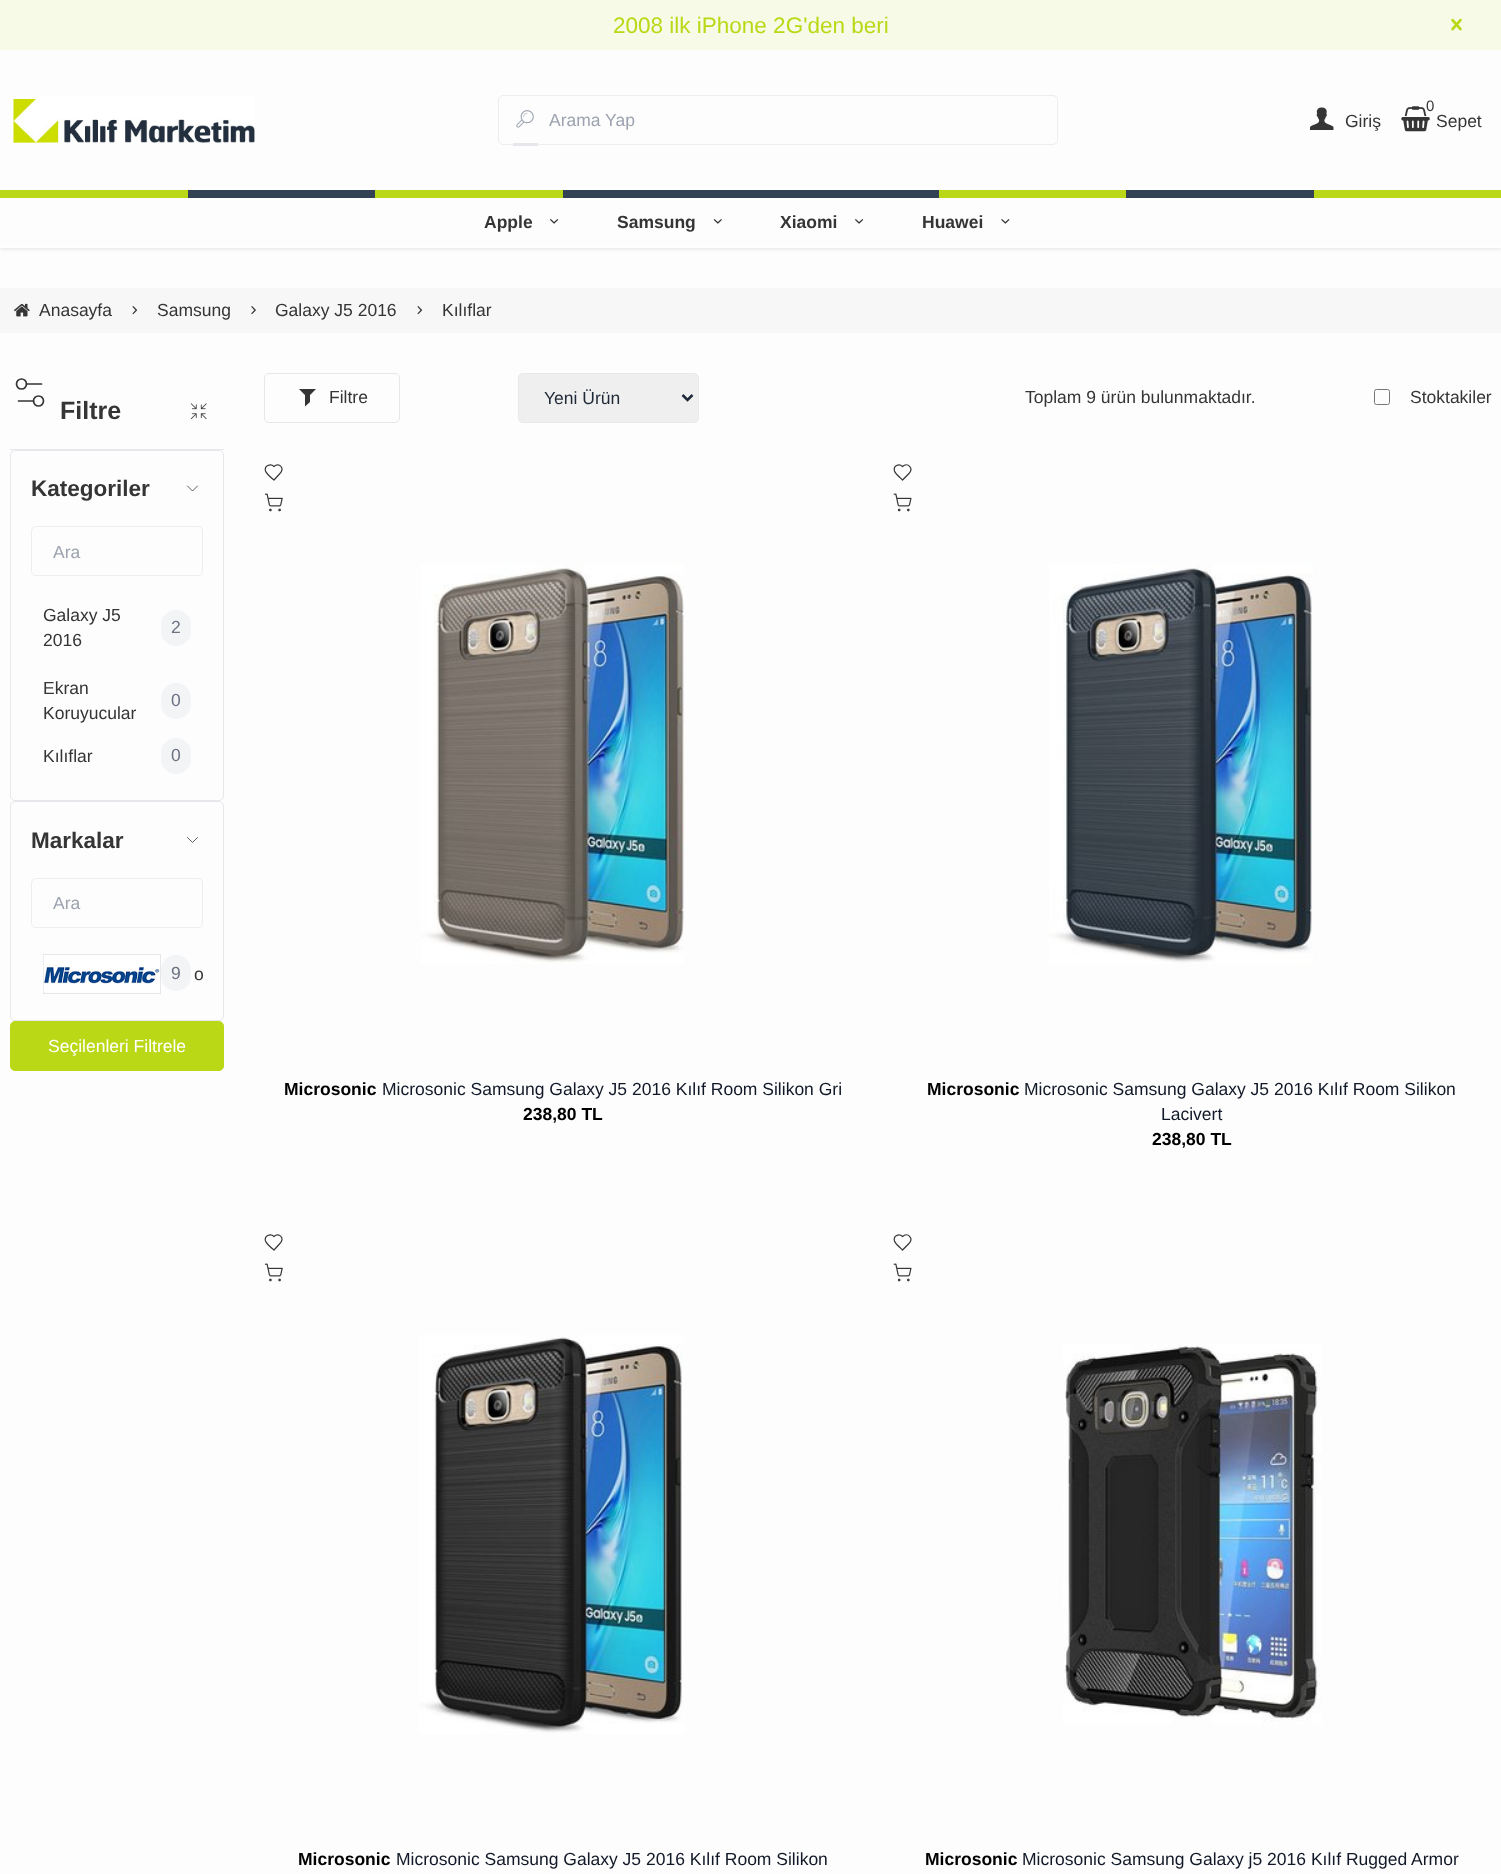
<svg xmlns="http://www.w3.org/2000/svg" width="1501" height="1874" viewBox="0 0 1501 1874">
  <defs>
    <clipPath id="clip1"><path d="M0 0H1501V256H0ZM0 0H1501V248H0Z" clip-rule="evenodd"/></clipPath>
    <filter id="blur1" x="-50%" y="-200%" width="200%" height="500%"><feGaussianBlur stdDeviation="2"/></filter>
    <clipPath id="clip2"><rect x="31" y="948" width="172" height="52"/></clipPath>
  </defs>
  <rect width="100%" height="100%" fill="#fdfdfd"/>
  <g clip-path="url(#clip1)">
    <rect x="0" y="1" width="1501" height="248" fill="#000000" fill-opacity="0.1" filter="url(#blur1)"/>
  </g>
  <rect x="0" y="247" width="1501" height="1" fill="#ffffff" fill-opacity="0.75"/>
  <rect x="0" y="0" width="1501" height="50" fill="#f7fae7"/>
  <text x="613" y="33" font-family="Liberation Sans" font-size="22.5" fill="#bbd817">2008 ilk iPhone 2G'den beri</text>
  <image x="1451" y="18" width="11" height="13" href="img1.png"/>
  <image x="10" y="96" width="245" height="48" href="img2.png"/>
  <rect x="498.5" y="95.5" width="559" height="49" rx="4.5" fill="none" stroke="#edeef1"/>
  <rect x="513" y="143" width="25" height="3" fill="#e5e7eb"/>
  <image x="516" y="110" width="18" height="18" href="img3.png"/>
  <text x="549" y="126" font-family="Liberation Sans" font-size="17.5" fill="#9ca3af">Arama Yap</text>
  <image x="1310" y="107" width="24" height="23" href="img4.png"/>
  <text x="1345" y="127" font-family="Liberation Sans" font-size="17.5" fill="#353535">Giriş</text>
  <image x="1401" y="106" width="29" height="26" href="img5.png"/>
  <text x="1426" y="111" font-family="Liberation Sans" font-size="15" fill="#353535">0</text>
  <text x="1436" y="127" font-family="Liberation Sans" font-size="17.5" fill="#353535">Sepet</text>
  <rect x="0" y="190" width="188" height="8" fill="#bbd817"/>
  <rect x="188" y="190" width="187" height="8" fill="#334155"/>
  <rect x="375" y="190" width="188" height="8" fill="#bbd817"/>
  <rect x="563" y="190" width="376" height="8" fill="#334155"/>
  <rect x="939" y="190" width="187" height="8" fill="#bbd817"/>
  <rect x="1126" y="190" width="188" height="8" fill="#334155"/>
  <rect x="1314" y="190" width="187" height="8" fill="#bbd817"/>
  <text x="484" y="228" font-family="Liberation Sans" font-size="17.5" font-weight="bold" fill="#353535">Apple</text>
  <image x="550" y="219" width="9" height="5" href="img6.png"/>
  <text x="617" y="228" font-family="Liberation Sans" font-size="17.5" font-weight="bold" fill="#353535">Samsung</text>
  <image x="713" y="219" width="9" height="5" href="img7.png"/>
  <text x="780" y="228" font-family="Liberation Sans" font-size="17.5" font-weight="bold" fill="#353535">Xiaomi</text>
  <image x="855" y="219" width="9" height="5" href="img6.png"/>
  <text x="922" y="228" font-family="Liberation Sans" font-size="17.5" font-weight="bold" fill="#353535">Huawei</text>
  <image x="1001" y="219" width="9" height="5" href="img8.png"/>
  <rect x="0" y="288" width="1501" height="45" fill="#f7f7f7"/>
  <image x="14" y="303" width="16" height="14" href="img9.png"/>
  <text x="39" y="316" font-family="Liberation Sans" font-size="17.5" fill="#353535">Anasayfa</text>
  <image x="132" y="306" width="6" height="9" href="img10.png"/>
  <text x="157" y="316" font-family="Liberation Sans" font-size="17.5" fill="#353535">Samsung</text>
  <image x="251" y="306" width="5" height="9" href="img11.png"/>
  <text x="275" y="316" font-family="Liberation Sans" font-size="17.5" fill="#353535">Galaxy J5 2016</text>
  <image x="417" y="306" width="6" height="9" href="img10.png"/>
  <text x="442" y="316" font-family="Liberation Sans" font-size="17.5" fill="#353535">Kılıflar</text>
  <rect x="10" y="449" width="214" height="1" fill="#e5e7eb"/>
  <path d="M33.5 401H18.5M41.5 384H26.5" fill="none" stroke="#353535" stroke-width="1.7" stroke-linecap="round" stroke-linejoin="round"/>
  <circle cx="38.5" cy="401" r="5" fill="none" stroke="#353535" stroke-width="1.7"/>
  <circle cx="21.5" cy="384" r="5" fill="none" stroke="#353535" stroke-width="1.7"/>
  <text x="60" y="419" font-family="Liberation Sans" font-size="25" font-weight="bold" fill="#353535">Filtre</text>
  <image x="190" y="403" width="17" height="17" href="img12.png"/>
  <rect x="10.5" y="450.5" width="213" height="350" rx="4.5" fill="none" stroke="#e5e7eb"/>
  <text x="31" y="496" font-family="Liberation Sans" font-size="22.5" font-weight="bold" fill="#353535">Kategoriler</text>
  <path d="M187.5 486L192.5 491L197.5 486" fill="none" stroke="#353535" stroke-width="0.8" stroke-linecap="round" stroke-linejoin="round"/>
  <rect x="31.5" y="526.5" width="171" height="49" rx="4.5" fill="none" stroke="#edeef1"/>
  <text x="53" y="558" font-family="Liberation Sans" font-size="17.5" fill="#9ca3af">Ara</text>
  <text x="43" y="621" font-family="Liberation Sans" font-size="17.5" fill="#353535">Galaxy J5</text>
  <text x="43" y="646" font-family="Liberation Sans" font-size="17.5" fill="#353535">2016</text>
  <rect x="161" y="610" width="30" height="36" rx="15" fill="#f3f4f6"/>
  <text x="171" y="633" font-family="Liberation Sans" font-size="17.5" fill="#6b7280">2</text>
  <text x="43" y="694" font-family="Liberation Sans" font-size="17.5" fill="#353535">Ekran</text>
  <text x="43" y="719" font-family="Liberation Sans" font-size="17.5" fill="#353535">Koruyucular</text>
  <rect x="161" y="683" width="30" height="36" rx="15" fill="#f3f4f6"/>
  <text x="171" y="706" font-family="Liberation Sans" font-size="17.5" fill="#6b7280">0</text>
  <text x="43" y="762" font-family="Liberation Sans" font-size="17.5" fill="#353535">Kılıflar</text>
  <rect x="161" y="738" width="30" height="36" rx="15" fill="#f3f4f6"/>
  <text x="171" y="761" font-family="Liberation Sans" font-size="17.5" fill="#6b7280">0</text>
  <rect x="10.5" y="801.5" width="213" height="219" rx="4.5" fill="none" stroke="#e5e7eb"/>
  <text x="31" y="848" font-family="Liberation Sans" font-size="22.5" font-weight="bold" fill="#353535">Markalar</text>
  <path d="M187.5 837.5L192.5 842.5L197.5 837.5" fill="none" stroke="#353535" stroke-width="0.8" stroke-linecap="round" stroke-linejoin="round"/>
  <rect x="31.5" y="878.5" width="171" height="49" rx="4.5" fill="none" stroke="#edeef1"/>
  <text x="53" y="909" font-family="Liberation Sans" font-size="17.5" fill="#9ca3af">Ara</text>
  <rect x="161" y="955" width="30" height="36" rx="15" fill="#f3f4f6"/>
  <text x="171" y="979" font-family="Liberation Sans" font-size="17.5" fill="#6b7280">9</text>
  <rect x="43.5" y="954.5" width="117" height="39" fill="none" stroke="#e5e7eb"/>
  <image x="43" y="955" width="117" height="37" href="img13.png"/>
  <g clip-path="url(#clip2)">
    <text x="194" y="980" font-family="Liberation Sans" font-size="17.5" fill="#353535">o</text>
  </g>
  <rect x="10.5" y="1021.5" width="213" height="49" rx="4.5" fill="#bbd817" stroke="#bbd817"/>
  <text x="48" y="1052" font-family="Liberation Sans" font-size="17.5" fill="#ffffff">Seçilenleri Filtrele</text>
  <rect x="264.5" y="373.5" width="135" height="49" rx="4.5" fill="none" stroke="#e5e7eb"/>
  <path d="M299 389H316L310 395V402L305 406.5V395Z" fill="#353535"/>
  <text x="329" y="403" font-family="Liberation Sans" font-size="17.5" fill="#353535">Filtre</text>
  <rect x="518" y="373" width="181" height="50" rx="5" fill="#efefef"/>
  <rect x="518.5" y="373.5" width="180" height="49" rx="4.5" fill="none" stroke="#e5e7eb" stroke-opacity="0.7"/>
  <path d="M682.5 395L687.5 400L692.5 395" fill="none" stroke="#1f2937" stroke-width="2.5"/>
  <text x="544" y="404" font-family="Liberation Sans" font-size="17.5" fill="#1f2937">Yeni Ürün</text>
  <text x="1025" y="403" font-family="Liberation Sans" font-size="17.5" fill="#353535">Toplam 9 ürün bulunmaktadır.</text>
  <rect x="1374.5" y="389.5" width="15" height="15" rx="2" fill="none" stroke="#767676"/>
  <text x="1410" y="403" font-family="Liberation Sans" font-size="17.5" fill="#353535">Stoktakiler</text>
  <path d="M279.5 474C286 468 278.5 462 274 466.5C270.5 463 264 466 265.5 471C266.5 474 271.5 478 274 480Z" fill="none" stroke="#353535" stroke-width="1.2" stroke-linecap="round" stroke-linejoin="round"/>
  <image x="264" y="493" width="19" height="19" href="img14.png"/>
  <image x="421" y="564" width="263" height="400" href="img15.png"/>
  <text x="284" y="1095" font-family="Liberation Sans" font-size="17.5" font-weight="bold" fill="#000000">Microsonic</text>
  <text x="382" y="1095" font-family="Liberation Sans" font-size="17.5" fill="#111827">Microsonic Samsung Galaxy J5 2016 Kılıf Room Silikon Gri</text>
  <text x="523" y="1120" font-family="Liberation Sans" font-size="17.5" font-weight="bold" fill="#000000">238,80 TL</text>
  <path d="M908.5 474C914.5 468 907.5 462 902.5 466.5C899 463 893 466 894.5 471C895.5 474 900.5 478 902.5 480Z" fill="none" stroke="#353535" stroke-width="1.2" stroke-linecap="round" stroke-linejoin="round"/>
  <image x="893" y="493" width="19" height="19" href="img16.png"/>
  <image x="1049" y="564" width="264" height="400" href="img17.png"/>
  <text x="927" y="1095" font-family="Liberation Sans" font-size="17.5" font-weight="bold" fill="#000000">Microsonic</text>
  <text x="1024" y="1095" font-family="Liberation Sans" font-size="17.5" fill="#111827">Microsonic Samsung Galaxy J5 2016 Kılıf Room Silikon</text>
  <text x="1161" y="1120" font-family="Liberation Sans" font-size="17.5" fill="#111827">Lacivert</text>
  <text x="1152" y="1145" font-family="Liberation Sans" font-size="17.5" font-weight="bold" fill="#000000">238,80 TL</text>
  <path d="M279.5 1244C286 1238 278.5 1232 274 1236.5C270.5 1233 264 1236 265.5 1241C266.5 1244 271.5 1248 274 1250Z" fill="none" stroke="#353535" stroke-width="1.2" stroke-linecap="round" stroke-linejoin="round"/>
  <image x="264" y="1263" width="19" height="19" href="img14.png"/>
  <image x="419" y="1335" width="265" height="399" href="img18.png"/>
  <text x="298" y="1865" font-family="Liberation Sans" font-size="17.5" font-weight="bold" fill="#000000">Microsonic</text>
  <text x="396" y="1865" font-family="Liberation Sans" font-size="17.5" fill="#111827">Microsonic Samsung Galaxy J5 2016 Kılıf Room Silikon</text>
  <path d="M908.5 1244C914.5 1238 907.5 1232 902.5 1236.5C899 1233 893 1236 894.5 1241C895.5 1244 900.5 1248 902.5 1250Z" fill="none" stroke="#353535" stroke-width="1.2" stroke-linecap="round" stroke-linejoin="round"/>
  <image x="893" y="1263" width="19" height="19" href="img16.png"/>
  <image x="1063" y="1344" width="259" height="380" href="img19.png"/>
  <text x="925" y="1865" font-family="Liberation Sans" font-size="17.5" font-weight="bold" fill="#000000">Microsonic</text>
  <text x="1022" y="1865" font-family="Liberation Sans" font-size="17.5" fill="#111827">Microsonic Samsung Galaxy j5 2016 Kılıf Rugged Armor</text>
</svg>
